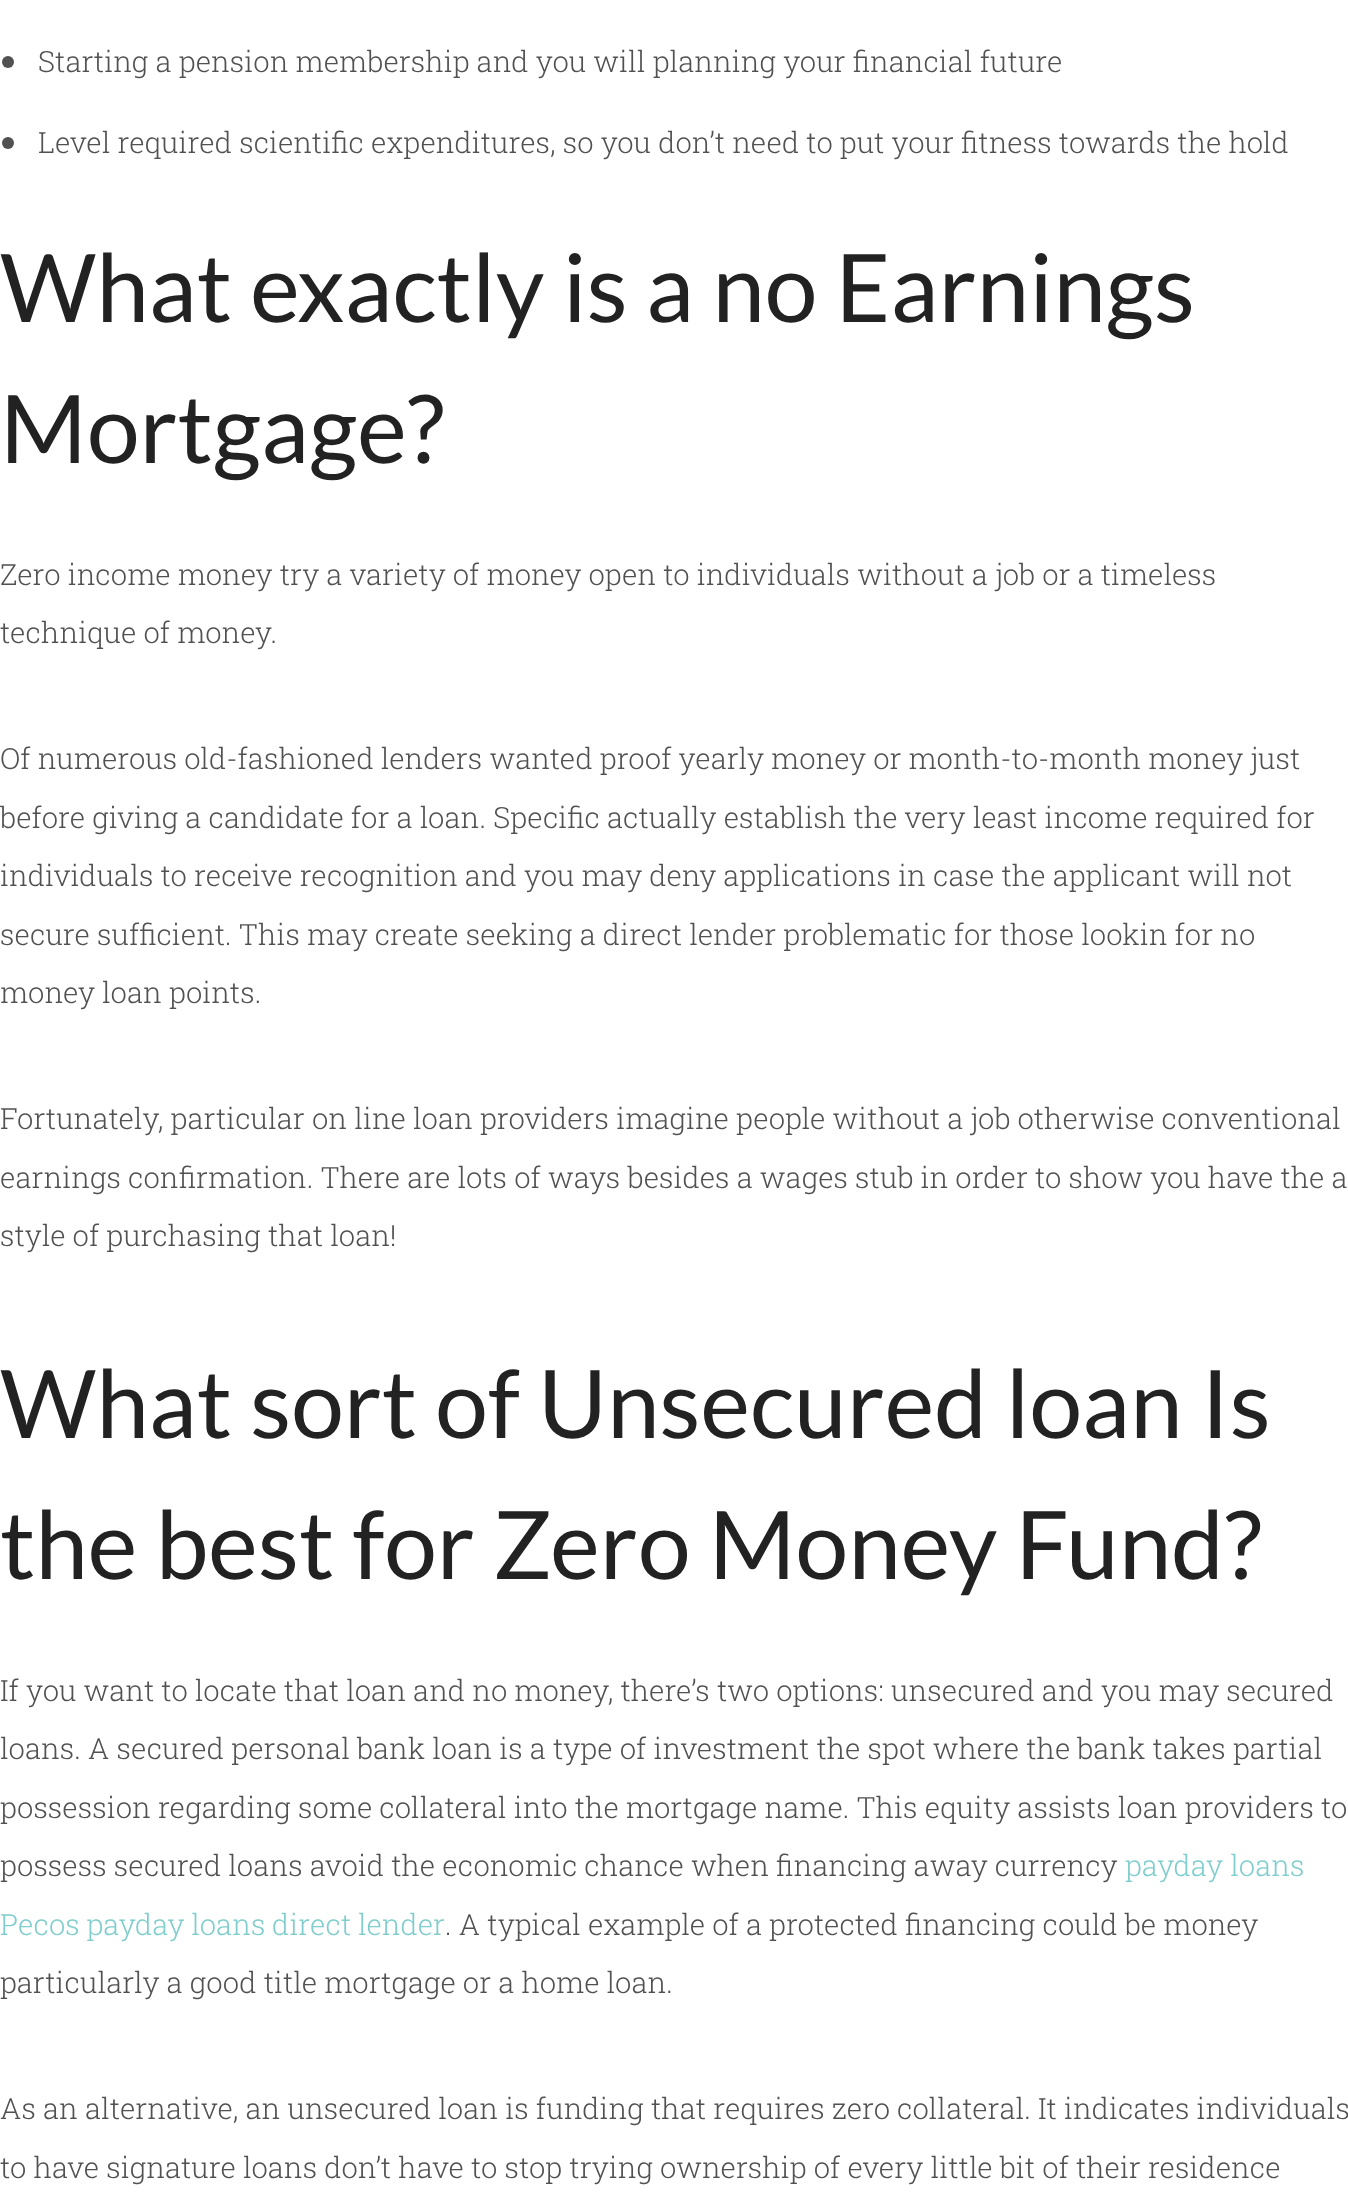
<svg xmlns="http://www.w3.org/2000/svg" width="1348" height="2207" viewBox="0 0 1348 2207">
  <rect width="100%" height="100%" fill="#ffffff"/>
  <circle cx="8" cy="62" r="6" fill="#515151"/>
  <text x="38" y="72" font-family="Roboto Slab" font-size="29.25" font-weight="300" fill="#515151">Starting a pension membership and you will planning your financial future</text>
  <circle cx="8" cy="143" r="6" fill="#515151"/>
  <text x="38" y="153" font-family="Roboto Slab" font-size="29.25" font-weight="300" fill="#515151">Level required scientific expenditures, so you don’t need to put your fitness towards the hold</text>
  <text x="0" y="322" font-family="Lato" font-size="94.5" fill="#222222">What exactly is a no Earnings</text>
  <text x="0" y="463" font-family="Lato" font-size="94.5" fill="#222222">Mortgage?</text>
  <text x="0" y="585" font-family="Roboto Slab" font-size="29.25" font-weight="300" fill="#515151">Zero income money try a variety of money open to individuals without a job or a timeless</text>
  <text x="0" y="643" font-family="Roboto Slab" font-size="29.25" font-weight="300" fill="#515151">technique of money.</text>
  <text x="0" y="769" font-family="Roboto Slab" font-size="29.25" font-weight="300" fill="#515151">Of numerous old-fashioned lenders wanted proof yearly money or month-to-month money just</text>
  <text x="0" y="828" font-family="Roboto Slab" font-size="29.25" font-weight="300" fill="#515151">before giving a candidate for a loan. Specific actually establish the very least income required for</text>
  <text x="0" y="886" font-family="Roboto Slab" font-size="29.25" font-weight="300" fill="#515151">individuals to receive recognition and you may deny applications in case the applicant will not</text>
  <text x="0" y="945" font-family="Roboto Slab" font-size="29.25" font-weight="300" fill="#515151">secure sufficient. This may create seeking a direct lender problematic for those lookin for no</text>
  <text x="0" y="1003" font-family="Roboto Slab" font-size="29.25" font-weight="300" fill="#515151">money loan points.</text>
  <text x="0" y="1129" font-family="Roboto Slab" font-size="29.25" font-weight="300" fill="#515151">Fortunately, particular on line loan providers imagine people without a job otherwise conventional</text>
  <text x="0" y="1188" font-family="Roboto Slab" font-size="29.25" font-weight="300" fill="#515151">earnings confirmation. There are lots of ways besides a wages stub in order to show you have the a</text>
  <text x="0" y="1246" font-family="Roboto Slab" font-size="29.25" font-weight="300" fill="#515151">style of purchasing that loan!</text>
  <text x="0" y="1438" font-family="Lato" font-size="94.5" fill="#222222">What sort of Unsecured loan Is</text>
  <text x="0" y="1579" font-family="Lato" font-size="94.5" fill="#222222">the best for Zero Money Fund?</text>
  <text x="0" y="1701" font-family="Roboto Slab" font-size="29.25" font-weight="300" fill="#515151">If you want to locate that loan and no money, there’s two options: unsecured and you may secured</text>
  <text x="0" y="1759" font-family="Roboto Slab" font-size="29.25" font-weight="300" fill="#515151">loans. A secured personal bank loan is a type of investment the spot where the bank takes partial</text>
  <text x="0" y="1818" font-family="Roboto Slab" font-size="29.25" font-weight="300" fill="#515151">possession regarding some collateral into the mortgage name. This equity assists loan providers to</text>
  <text x="0" y="1876" font-family="Roboto Slab" font-size="29.25" font-weight="300" fill="#515151">possess secured loans avoid the economic chance when financing away currency</text>
  <text x="1125" y="1876" font-family="Roboto Slab" font-size="29.25" font-weight="300" fill="#80cdcd">payday loans</text>
  <text x="0" y="1935" word-spacing="-0.5" font-family="Roboto Slab" font-size="29.25" font-weight="300" fill="#80cdcd">Pecos payday loans direct lender</text>
  <text x="445" y="1935" font-family="Roboto Slab" font-size="29.25" font-weight="300" fill="#515151">. A typical example of a protected financing could be money</text>
  <text x="0" y="1993" font-family="Roboto Slab" font-size="29.25" font-weight="300" fill="#515151">particularly a good title mortgage or a home loan.</text>
  <text x="0" y="2119" font-family="Roboto Slab" font-size="29.25" font-weight="300" fill="#515151">As an alternative, an unsecured loan is funding that requires zero collateral. It indicates individuals</text>
  <text x="0" y="2178" font-family="Roboto Slab" font-size="29.25" font-weight="300" fill="#515151">to have signature loans don’t have to stop trying ownership of every little bit of their residence</text>
</svg>
